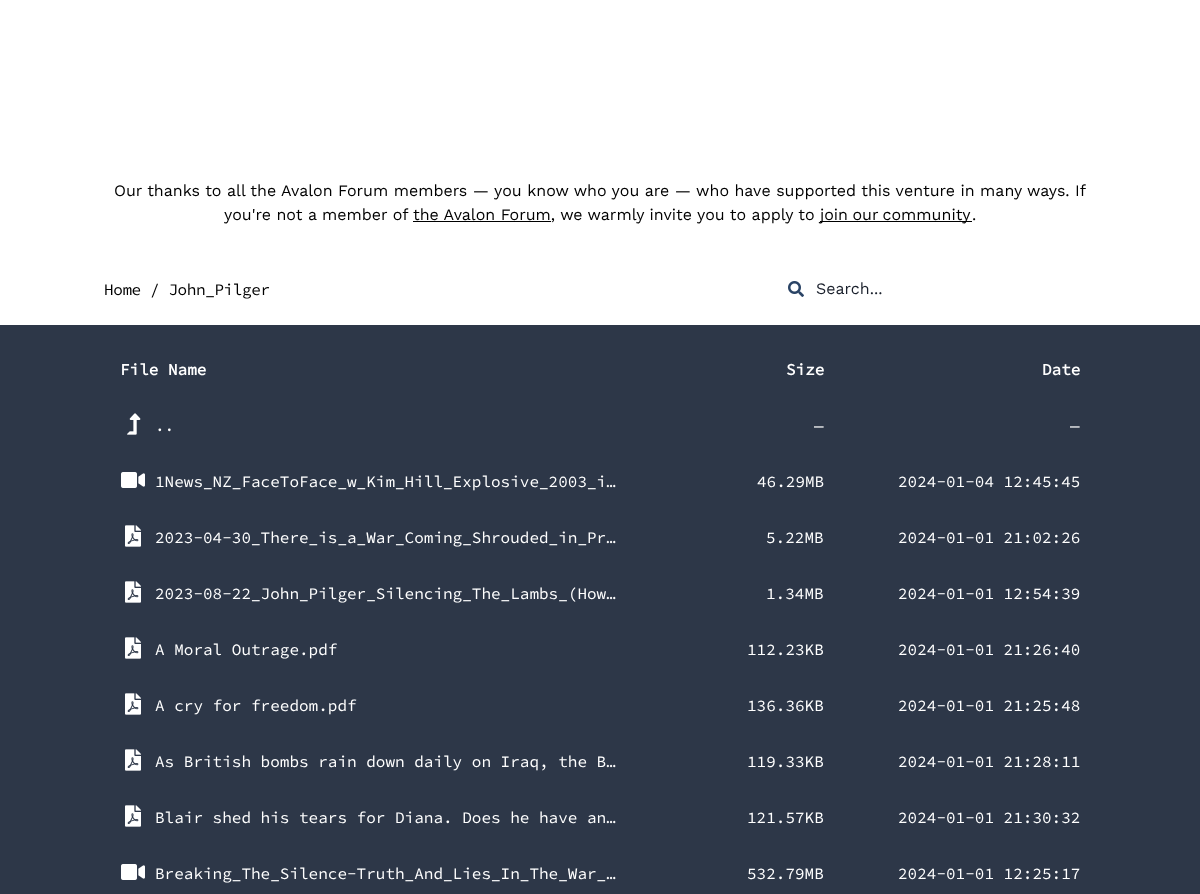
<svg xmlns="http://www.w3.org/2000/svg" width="1200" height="894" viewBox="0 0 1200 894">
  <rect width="100%" height="100%" fill="#2d3748"/>
  <rect x="0" y="0" width="1200" height="325" fill="#ffffff"/>
  <text x="114" y="196" font-family="Work Sans" font-size="16" fill="#000000">Our thanks to all the Avalon Forum members — you know who you are — who have supported this venture in many ways. If</text>
  <text x="224" y="220" font-family="Work Sans" font-size="16" fill="#000000">you're not a member of the Avalon Forum, we warmly invite you to apply to</text>
  <rect x="820" y="221" width="152" height="1" fill="#000000"/>
  <text x="820" y="220" word-spacing="-1" font-family="Work Sans" font-size="16" fill="#000000">join our community</text>
  <text x="972" y="220" font-family="Work Sans" font-size="16" fill="#000000">.</text>
  <rect x="413" y="221" width="138" height="1" fill="#000000"/>
  <text x="104" y="295" font-family="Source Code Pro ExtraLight" font-size="16" font-weight="200" letter-spacing="-0.4" fill="#000000">Home / John_Pilger</text>
  <image x="788" y="281" width="16" height="16" href="img1.png"/>
  <text x="816" y="294" font-family="Work Sans" font-size="16" fill="#1a202c">Search...</text>
  <text x="120" y="375" font-family="Source Code Pro ExtraLight" font-size="16" font-weight="bold" fill="#ffffff">File Name</text>
  <text x="786" y="375" font-family="Source Code Pro ExtraLight" font-size="16" font-weight="bold" fill="#ffffff">Size</text>
  <text x="1042" y="375" font-family="Source Code Pro ExtraLight" font-size="16" font-weight="bold" fill="#ffffff">Date</text>
  <image x="127" y="413" width="14" height="22" href="img2.png"/>
  <text x="814" y="431" font-family="Source Code Pro ExtraLight" font-size="16" font-weight="200" fill="#ffffff">—</text>
  <text x="1070" y="431" font-family="Source Code Pro ExtraLight" font-size="16" font-weight="200" fill="#ffffff">—</text>
  <text x="155" y="431" font-family="Source Code Pro ExtraLight" font-size="16" font-weight="200" fill="#ffffff">..</text>
  <image x="121" y="472" width="24" height="16" href="img3.png"/>
  <text x="155" y="487" font-family="Source Code Pro ExtraLight" font-size="16" font-weight="200" fill="#ffffff">1News_NZ_FaceToFace_w_Kim_Hill_Explosive_2003_i…</text>
  <text x="757" y="487" font-family="Source Code Pro ExtraLight" font-size="16" font-weight="200" fill="#ffffff">46.29MB</text>
  <text x="898" y="487" font-family="Source Code Pro ExtraLight" font-size="16" font-weight="200" fill="#ffffff">2024-01-04 12:45:45</text>
  <image x="125" y="525" width="16" height="22" href="img4.png"/>
  <text x="155" y="543" font-family="Source Code Pro ExtraLight" font-size="16" font-weight="200" fill="#ffffff">2023-04-30_There_is_a_War_Coming_Shrouded_in_Pr…</text>
  <text x="766" y="543" font-family="Source Code Pro ExtraLight" font-size="16" font-weight="200" fill="#ffffff">5.22MB</text>
  <text x="898" y="543" font-family="Source Code Pro ExtraLight" font-size="16" font-weight="200" fill="#ffffff">2024-01-01 21:02:26</text>
  <image x="125" y="581" width="16" height="22" href="img4.png"/>
  <text x="155" y="599" font-family="Source Code Pro ExtraLight" font-size="16" font-weight="200" fill="#ffffff">2023-08-22_John_Pilger_Silencing_The_Lambs_(How…</text>
  <text x="766" y="599" font-family="Source Code Pro ExtraLight" font-size="16" font-weight="200" fill="#ffffff">1.34MB</text>
  <text x="898" y="599" font-family="Source Code Pro ExtraLight" font-size="16" font-weight="200" fill="#ffffff">2024-01-01 12:54:39</text>
  <image x="125" y="637" width="16" height="22" href="img4.png"/>
  <text x="155" y="655" font-family="Source Code Pro ExtraLight" font-size="16" font-weight="200" fill="#ffffff">A Moral Outrage.pdf</text>
  <text x="747" y="655" font-family="Source Code Pro ExtraLight" font-size="16" font-weight="200" fill="#ffffff">112.23KB</text>
  <text x="898" y="655" font-family="Source Code Pro ExtraLight" font-size="16" font-weight="200" fill="#ffffff">2024-01-01 21:26:40</text>
  <image x="125" y="693" width="16" height="22" href="img4.png"/>
  <text x="155" y="711" font-family="Source Code Pro ExtraLight" font-size="16" font-weight="200" fill="#ffffff">A cry for freedom.pdf</text>
  <text x="747" y="711" font-family="Source Code Pro ExtraLight" font-size="16" font-weight="200" fill="#ffffff">136.36KB</text>
  <text x="898" y="711" font-family="Source Code Pro ExtraLight" font-size="16" font-weight="200" fill="#ffffff">2024-01-01 21:25:48</text>
  <image x="125" y="749" width="16" height="22" href="img4.png"/>
  <text x="155" y="767" font-family="Source Code Pro ExtraLight" font-size="16" font-weight="200" fill="#ffffff">As British bombs rain down daily on Iraq, the B…</text>
  <text x="747" y="767" font-family="Source Code Pro ExtraLight" font-size="16" font-weight="200" fill="#ffffff">119.33KB</text>
  <text x="898" y="767" font-family="Source Code Pro ExtraLight" font-size="16" font-weight="200" fill="#ffffff">2024-01-01 21:28:11</text>
  <image x="125" y="805" width="16" height="22" href="img4.png"/>
  <text x="155" y="823" font-family="Source Code Pro ExtraLight" font-size="16" font-weight="200" fill="#ffffff">Blair shed his tears for Diana. Does he have an…</text>
  <text x="747" y="823" font-family="Source Code Pro ExtraLight" font-size="16" font-weight="200" fill="#ffffff">121.57KB</text>
  <text x="898" y="823" font-family="Source Code Pro ExtraLight" font-size="16" font-weight="200" fill="#ffffff">2024-01-01 21:30:32</text>
  <image x="121" y="864" width="24" height="16" href="img3.png"/>
  <text x="155" y="879" font-family="Source Code Pro ExtraLight" font-size="16" font-weight="200" fill="#ffffff">Breaking_The_Silence-Truth_And_Lies_In_The_War_…</text>
  <text x="747" y="879" font-family="Source Code Pro ExtraLight" font-size="16" font-weight="200" fill="#ffffff">532.79MB</text>
  <text x="898" y="879" font-family="Source Code Pro ExtraLight" font-size="16" font-weight="200" fill="#ffffff">2024-01-01 12:25:17</text>
</svg>
